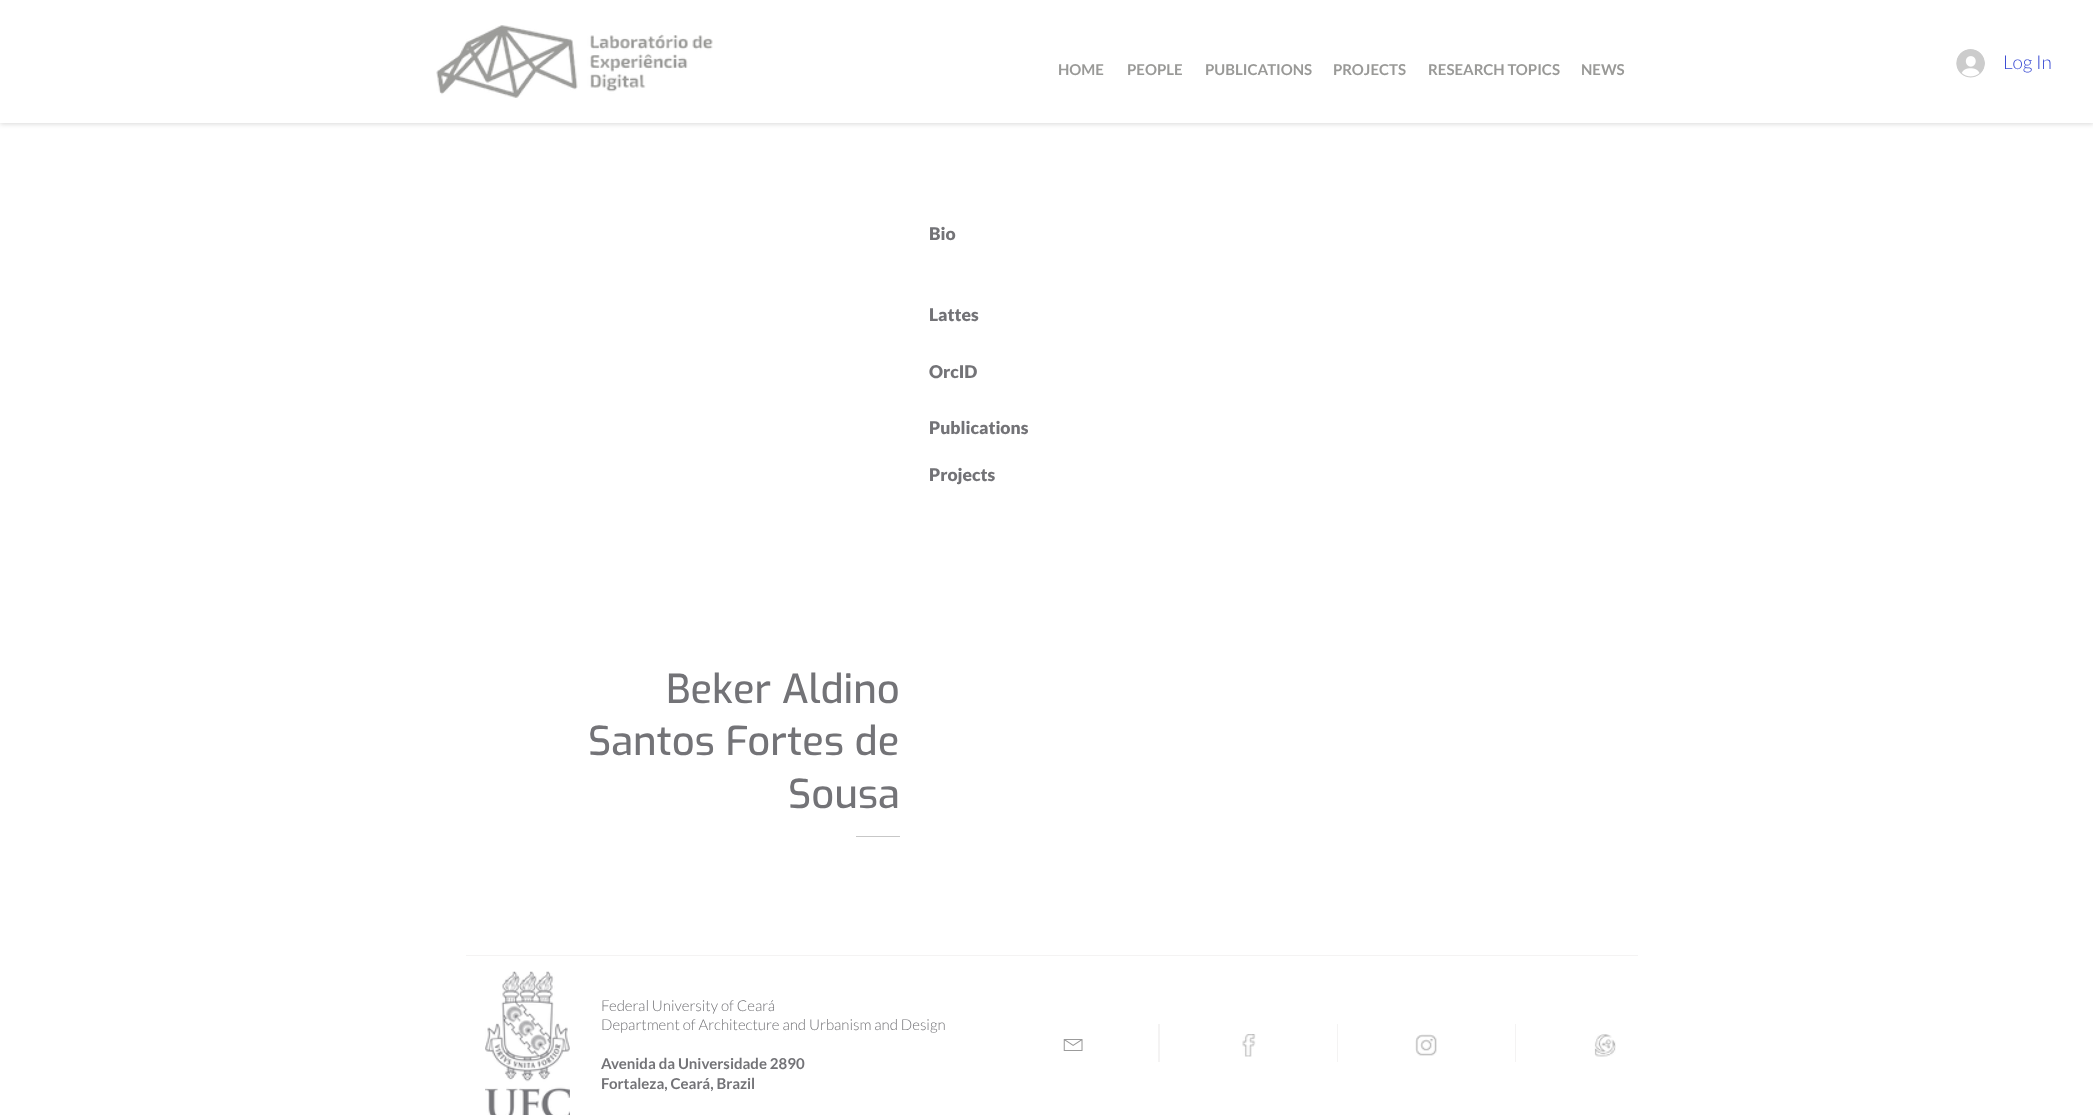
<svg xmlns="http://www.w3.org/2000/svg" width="2093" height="1115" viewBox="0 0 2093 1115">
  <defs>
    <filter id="blur1" x="-50%" y="-200%" width="200%" height="500%"><feGaussianBlur stdDeviation="2.5"/></filter>
  </defs>
  <rect width="100%" height="100%" fill="#ffffff"/>
  <rect x="0" y="1" width="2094" height="123" fill="#000000" fill-opacity="0.15" filter="url(#blur1)"/>
  <rect x="0" y="0" width="2093" height="123" fill="#ffffff"/>
  <image x="436" y="25" width="277" height="73" href="img1.png"/>
  <text x="1058" y="75" font-family="Lato" font-size="15" font-weight="bold" fill="#999997">HOME</text>
  <text x="1127" y="75" font-family="Lato" font-size="15" font-weight="bold" fill="#999997">PEOPLE</text>
  <text x="1205" y="75" font-family="Lato" font-size="15" font-weight="bold" fill="#999997">PUBLICATIONS</text>
  <text x="1333" y="75" font-family="Lato" font-size="15" font-weight="bold" fill="#999997">PROJECTS</text>
  <text x="1428" y="75" font-family="Lato" font-size="15" font-weight="bold" fill="#999997">RESEARCH TOPICS</text>
  <text x="1581" y="75" font-family="Lato" font-size="15" font-weight="bold" fill="#999997">NEWS</text>
  <image x="1956" y="49" width="29" height="29" href="img2.png"/>
  <text x="2003" y="69" font-family="Lato" font-size="19" font-weight="300" fill="#384ad3">Log In</text>
  <text x="929" y="240" font-family="Lato" font-size="17.5" font-weight="900" fill="#737377">Bio</text>
  <text x="929" y="321" font-family="Lato" font-size="17.5" font-weight="900" fill="#737377">Lattes</text>
  <text x="929" y="378" font-family="Lato" font-size="17.5" font-weight="900" fill="#737377">OrcID</text>
  <text x="929" y="434" font-family="Lato" font-size="17.5" font-weight="900" fill="#737377">Publications</text>
  <text x="929" y="481" font-family="Lato" font-size="17.5" font-weight="900" fill="#737377">Projects</text>
  <text x="666" y="703" font-family="Exo" font-size="40" font-weight="500" fill="#737377">Beker Aldino</text>
  <text x="588" y="755" font-family="Exo" font-size="40" font-weight="500" fill="#737377">Santos Fortes de</text>
  <text x="788" y="808" font-family="Exo" font-size="40" font-weight="500" fill="#737377">Sousa</text>
  <rect x="856" y="836" width="44" height="1" fill="#c7c7c7"/>
  <rect x="466" y="955" width="1172" height="1" fill="#f4f3f3"/>
  <image x="485" y="971" width="85" height="144" href="img3.png"/>
  <text x="601" y="1011" font-family="Lato" font-size="15" font-weight="300" fill="#737377">Federal University of Ceará</text>
  <text x="601" y="1030" font-family="Lato" font-size="15" font-weight="300" fill="#737377">Department of Architecture and Urbanism and Design</text>
  <text x="601" y="1069" font-family="Lato" font-size="15" font-weight="bold" fill="#737377">Avenida da Universidade 2890</text>
  <text x="601" y="1089" font-family="Lato" font-size="15" font-weight="bold" fill="#737377">Fortaleza, Ceará, Brazil</text>
  <image x="1063" y="1039" width="20" height="12" href="img4.png"/>
  <rect x="1158" y="1024" width="2" height="38" fill="#f4f3f3"/>
  <image x="1242" y="1034" width="14" height="23" href="img5.png"/>
  <rect x="1337" y="1024" width="1" height="38" fill="#f4f3f3"/>
  <image x="1415" y="1034" width="22" height="22" href="img6.png"/>
  <rect x="1515" y="1024" width="1" height="38" fill="#f4f3f3"/>
  <image x="1594" y="1034" width="22" height="23" href="img7.png"/>
</svg>
